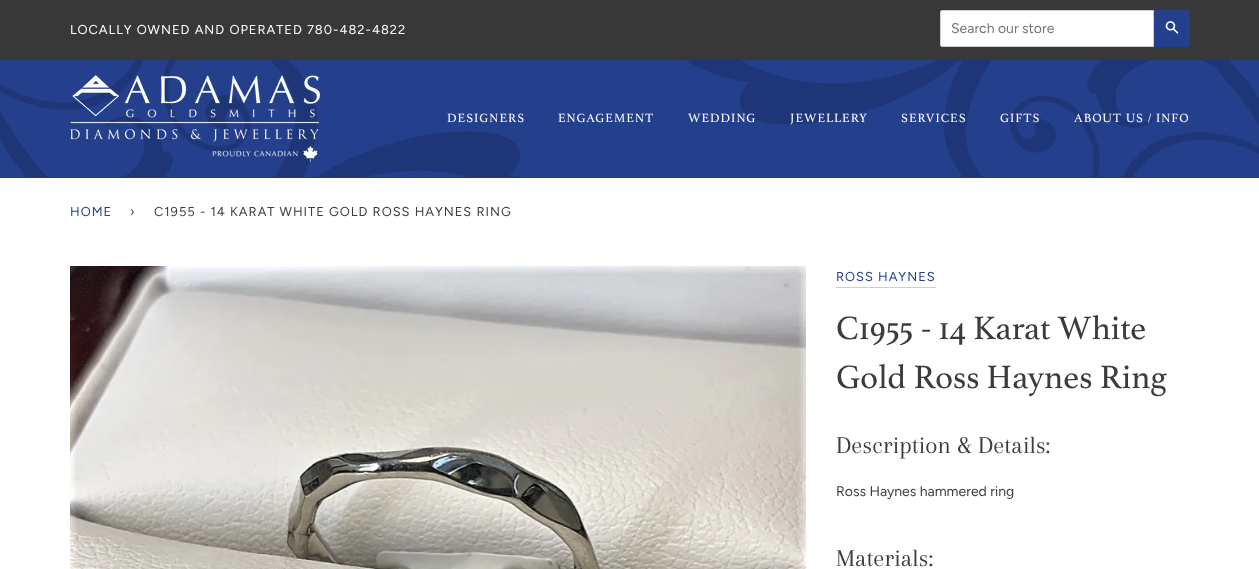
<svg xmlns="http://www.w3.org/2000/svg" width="1259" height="569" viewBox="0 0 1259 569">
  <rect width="100%" height="100%" fill="#ffffff"/>
  <rect x="0" y="0" width="1259" height="60" fill="#383838"/>
  <text x="70" y="34" font-family="Figtree" font-size="12.9" letter-spacing="1" fill="#ffffff">LOCALLY OWNED AND OPERATED 780-482-4822</text>
  <path d="M942 10.5H1153.5V46.5H942C941 46.5 940.5 46 940.5 45V12C940.5 11 941 10.5 942 10.5Z" fill="#ffffff" stroke="#cfcfcf"/>
  <text x="951" y="33" font-family="Figtree" font-size="14" fill="#757575">Search our store</text>
  <path d="M1154 10H1188C1189 10 1190 11 1190 12V45C1190 46 1189 47 1188 47H1154Z" fill="#243f8c"/>
  <image x="1165" y="21" width="14" height="13" href="img1.png"/>
  <rect x="0" y="60" width="1259" height="117" fill="#243f8c"/>
  <image x="0" y="60" width="1259" height="117" href="img2.png"/>
  <rect x="0" y="177" width="1259" height="1" fill="#383838"/>
  <image x="70" y="75" width="250" height="87" href="img3.png"/>
  <text x="447" y="122" font-family="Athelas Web" font-size="12.9" letter-spacing="1" fill="#ffffff">DESIGNERS</text>
  <text x="558" y="122" font-family="Athelas Web" font-size="12.9" letter-spacing="1" fill="#ffffff">ENGAGEMENT</text>
  <text x="688" y="122" font-family="Athelas Web" font-size="12.9" letter-spacing="1" fill="#ffffff">WEDDING</text>
  <text x="790" y="122" font-family="Athelas Web" font-size="12.9" letter-spacing="1" fill="#ffffff">JEWELLERY</text>
  <text x="901" y="122" font-family="Athelas Web" font-size="12.9" letter-spacing="1" fill="#ffffff">SERVICES</text>
  <text x="1000" y="122" font-family="Athelas Web" font-size="12.9" letter-spacing="1" fill="#ffffff">GIFTS</text>
  <text x="1074" y="122" font-family="Athelas Web" font-size="12.9" letter-spacing="1" fill="#ffffff">ABOUT US / INFO</text>
  <text x="70" y="216" font-family="Figtree" font-size="12.9" letter-spacing="1" fill="#243f8c">HOME</text>
  <text x="130" y="216" font-family="Figtree" font-size="12.9" letter-spacing="1" fill="#3c3c3c">›</text>
  <text x="154" y="216" font-family="Figtree" font-size="12.9" letter-spacing="1" fill="#3c3c3c">C1955 - 14 KARAT WHITE GOLD ROSS HAYNES RING</text>
  <image x="70" y="266" width="736" height="303" href="img4.png"/>
  <text x="836" y="281" font-family="Figtree" font-size="12.9" letter-spacing="1" fill="#243f8c">ROSS HAYNES</text>
  <rect x="836" y="287" width="100" height="1" fill="#cfcfcf"/>
  <text x="836" y="339" font-family="Athelas Web" font-size="35" fill="#3c3c3c">C1955 - 14 Karat White</text>
  <text x="836" y="388" font-family="Athelas Web" font-size="35" fill="#3c3c3c">Gold Ross Haynes Ring</text>
  <text x="836" y="453" font-family="Arapey" font-size="25" fill="#3c3c3c">Description &amp; Details:</text>
  <text x="836" y="496" font-family="Figtree" font-size="14" fill="#3c3c3c">Ross Haynes hammered ring</text>
  <text x="836" y="566" font-family="Arapey" font-size="25" fill="#3c3c3c">Materials:</text>
</svg>
